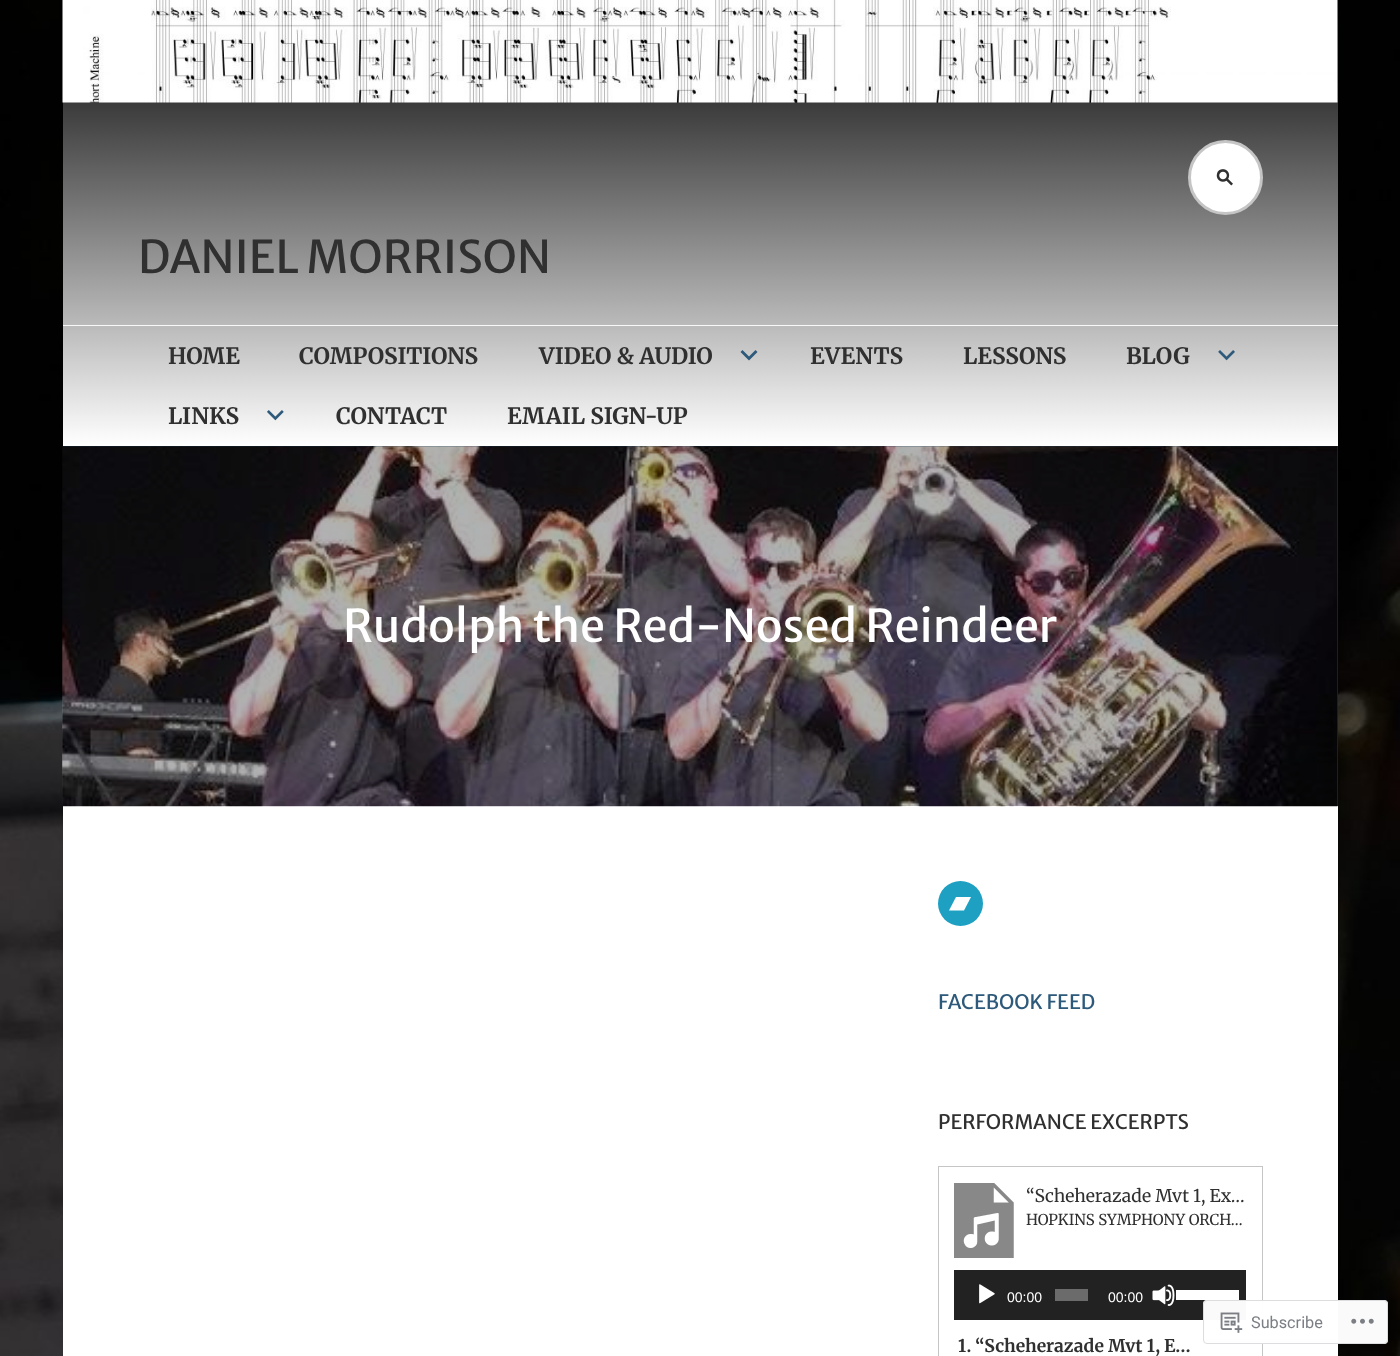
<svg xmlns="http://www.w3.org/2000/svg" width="1400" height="1356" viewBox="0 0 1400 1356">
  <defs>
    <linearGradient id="g1" gradientUnits="userSpaceOnUse" x1="700" y1="0" x2="700" y2="446"><stop offset="0" stop-color="#000000"/><stop offset="1" stop-color="#ffffff"/></linearGradient>
  </defs>
  <rect width="100%" height="100%" fill="#ffffff"/>
  <image x="0" y="0" width="1400" height="1356" href="img1.png"/>
  <rect x="63" y="0" width="1275" height="446" fill="url(#g1)"/>
  <image x="62" y="0" width="1276" height="103" href="img2.png"/>
  <circle cx="1225.5" cy="177.5" r="36" fill="#ffffff" stroke="#c5c5c5" stroke-width="3"/>
  <image x="1216" y="169" width="17" height="17" href="img3.png"/>
  <text x="138" y="273" font-family="Merriweather Sans" font-size="45" fill="#303030">DANIEL MORRISON</text>
  <rect x="63" y="325" width="1275" height="1" fill="#f8f8f8"/>
  <text x="168" y="364" font-family="Merriweather" font-size="22.5" font-weight="bold" fill="#303030">HOME</text>
  <text x="299" y="364" font-family="Merriweather" font-size="22.5" font-weight="bold" fill="#303030">COMPOSITIONS</text>
  <text x="539" y="364" font-family="Merriweather" font-size="22.5" font-weight="bold" fill="#303030">VIDEO &amp; AUDIO</text>
  <path d="M755.5 350L757.5 352L749 360.5L740.5 352L742.5 350L749 356.5Z" fill="#2d597a"/>
  <text x="810" y="364" font-family="Merriweather" font-size="22.5" font-weight="bold" fill="#303030">EVENTS</text>
  <text x="963" y="364" font-family="Merriweather" font-size="22.5" font-weight="bold" fill="#303030">LESSONS</text>
  <text x="1126" y="364" font-family="Merriweather" font-size="22.5" font-weight="bold" fill="#303030">BLOG</text>
  <image x="1218" y="350" width="17" height="11" href="img4.png"/>
  <text x="168" y="424" font-family="Merriweather" font-size="22.5" font-weight="bold" fill="#303030">LINKS</text>
  <image x="267" y="410" width="17" height="11" href="img5.png"/>
  <text x="336" y="424" font-family="Merriweather" font-size="22.5" font-weight="bold" fill="#303030">CONTACT</text>
  <text x="507" y="424" font-family="Merriweather" font-size="22.5" font-weight="bold" fill="#303030">EMAIL SIGN-UP</text>
  <rect x="63" y="806" width="1275" height="550" fill="#ffffff"/>
  <rect x="63" y="446" width="1275" height="360" fill="#2d597a"/>
  <image x="62" y="446" width="1276" height="361" href="img6.png"/>
  <rect x="63" y="446" width="1275" height="360" fill="#000000" fill-opacity="0.3"/>
  <text x="343" y="642" font-family="Merriweather Sans" font-size="45" fill="#ffffff">Rudolph the Red-Nosed Reindeer</text>
  <circle cx="960.5" cy="903.5" r="22.5" fill="#1ea0c3"/>
  <path d="M964 910.5H949L956 897H971L964 910.5" fill="#ffffff"/>
  <text x="938" y="1009" font-family="Merriweather Sans" font-size="20" fill="#2d597a">FACEBOOK FEED</text>
  <text x="938" y="1129" font-family="Merriweather Sans" font-size="20" fill="#303030">PERFORMANCE EXCERPTS</text>
  <rect x="938.5" y="1166.5" width="324" height="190" fill="none" stroke="#c5c5c5"/>
  <image x="954" y="1183" width="60" height="75" href="img7.png"/>
  <text x="1026" y="1202" font-family="Merriweather" font-size="17.5" fill="#303030">“Scheherazade Mvt 1, Ex…</text>
  <text x="1026" y="1225" font-family="Merriweather" font-size="15" fill="#303030">HOPKINS SYMPHONY ORCH…</text>
  <rect x="954" y="1270" width="292" height="50" fill="#222222"/>
  <image x="979" y="1284" width="16" height="20" href="img8.png"/>
  <text x="1007" y="1302" font-family="Liberation Sans" font-size="14" fill="#ffffff">00:00</text>
  <rect x="1055" y="1289" width="33" height="12" fill="#6b6b6b"/>
  <text x="1108" y="1302" font-family="Liberation Sans" font-size="14" fill="#ffffff">00:00</text>
  <image x="1152" y="1284" width="23" height="22" href="img9.png"/>
  <rect x="1176" y="1290" width="63" height="10" fill="#ffffff"/>
  <text x="958" y="1352" font-family="Merriweather" font-size="17.5" font-weight="bold" fill="#303030">1. “Scheherazade Mvt 1, E…</text>
  <rect x="1203" y="1300" width="185" height="44" rx="4" fill="#ffffff" fill-opacity="0.98"/>
  <rect x="1203.5" y="1300.5" width="184" height="43" rx="3.5" fill="none" stroke="#dcdcde" stroke-opacity="0.98"/>
  <image x="1220" y="1312" width="23" height="21" href="img10.png"/>
  <text x="1251" y="1328" font-family="Roboto" font-size="16.25" fill="#7b7f84">Subscribe</text>
  <image x="1351" y="1318" width="23" height="6" href="img11.png"/>
</svg>
